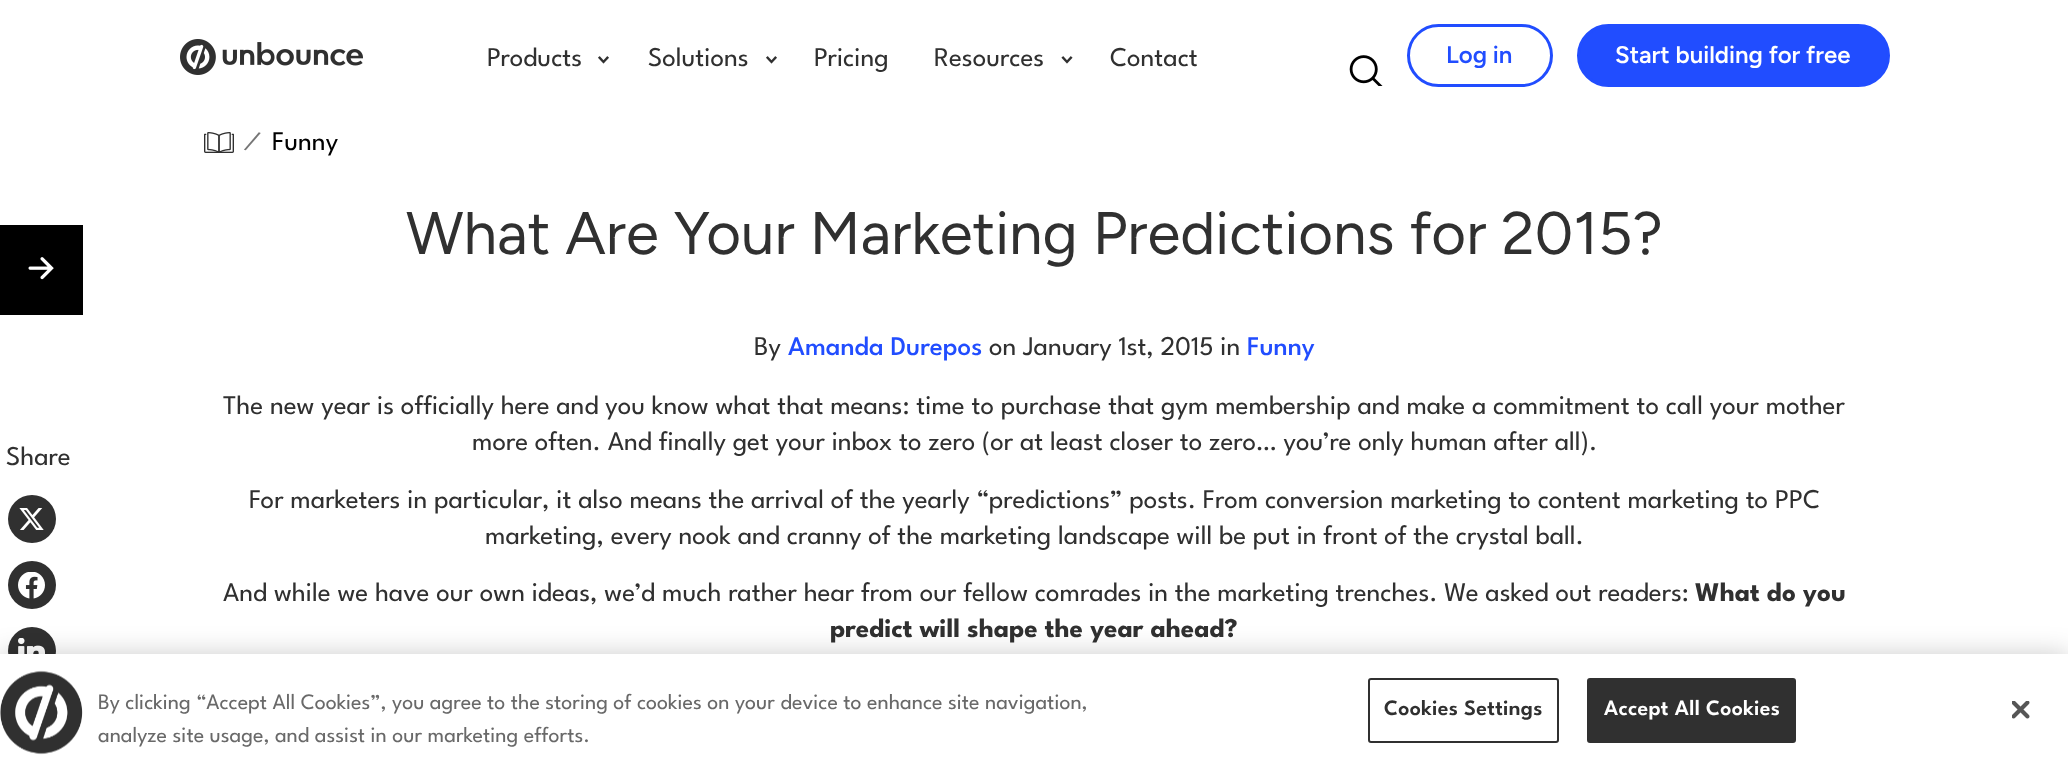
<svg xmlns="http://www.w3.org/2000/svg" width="2068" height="771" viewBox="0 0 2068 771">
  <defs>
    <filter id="blur1" x="-50%" y="-200%" width="200%" height="500%"><feGaussianBlur stdDeviation="13.5"/></filter>
  </defs>
  <rect width="100%" height="100%" fill="#ffffff"/>
  <image x="180" y="39" width="183" height="36" href="img1.png"/>
  <text x="487" y="66" font-family="League Spartan" font-size="27" fill="#303030">Products</text>
  <image x="598" y="56" width="11" height="8" href="img2.png"/>
  <text x="648" y="66" font-family="League Spartan" font-size="27" fill="#303030">Solutions</text>
  <image x="766" y="56" width="11" height="8" href="img2.png"/>
  <text x="814" y="66" font-family="League Spartan" font-size="27" fill="#303030">Pricing</text>
  <text x="934" y="66" font-family="League Spartan" font-size="27" fill="#303030">Resources</text>
  <image x="1061" y="56" width="12" height="8" href="img3.png"/>
  <text x="1110" y="66" font-family="League Spartan" font-size="27" fill="#303030">Contact</text>
  <image x="1349" y="55" width="34" height="31" href="img4.png"/>
  <rect x="1408.5" y="25.5" width="143" height="60" rx="30" fill="none" stroke="#214dff" stroke-width="3"/>
  <text x="1446" y="63" font-family="Figtree" font-size="24" font-weight="600" fill="#214dff">Log in</text>
  <rect x="1578.5" y="25.5" width="310" height="60" rx="30" fill="#214dff" stroke="#214dff" stroke-width="3"/>
  <text x="1615" y="63" font-family="Figtree" font-size="24" font-weight="600" fill="#ffffff">Start building for free</text>
  <rect x="0" y="225" width="83" height="90" fill="#000000"/>
  <image x="28" y="257" width="26" height="23" href="img5.png"/>
  <image x="204" y="132" width="30" height="21" href="img6.png"/>
  <text x="244" y="147" transform="rotate(18 244 147)" font-family="League Spartan" font-size="27" fill="#767676">/</text>
  <text x="272" y="150" font-family="League Spartan" font-size="27" fill="#000000">Funny</text>
  <text x="406" y="254" font-family="Figtree" font-size="60" fill="#303030">What Are Your Marketing Predictions for 2015?</text>
  <text x="754" y="355" font-family="League Spartan" font-size="27" fill="#303030">By</text>
  <text x="788" y="355" font-family="League Spartan" font-size="27" font-weight="500" fill="#214dff">Amanda Durepos</text>
  <text x="989" y="355" font-family="League Spartan" font-size="27" fill="#303030">on January 1st, 2015 in</text>
  <text x="1247" y="355" font-family="League Spartan" font-size="27" font-weight="500" fill="#214dff">Funny</text>
  <text x="223" y="414" font-family="League Spartan" font-size="27" fill="#303030">The new year is officially here and you know what that means: time to purchase that gym membership and make a commitment to call your mother</text>
  <text x="472" y="450" font-family="League Spartan" font-size="27" fill="#303030">more often. And finally get your inbox to zero (or at least closer to zero… you’re only human after all).</text>
  <text x="249" y="508" font-family="League Spartan" font-size="27" fill="#303030">For marketers in particular, it also means the arrival of the yearly “predictions” posts. From conversion marketing to content marketing to PPC</text>
  <text x="485" y="544" font-family="League Spartan" font-size="27" fill="#303030">marketing, every nook and cranny of the marketing landscape will be put in front of the crystal ball.</text>
  <text x="223" y="601" font-family="League Spartan" font-size="27" fill="#303030">And while we have our own ideas, we’d much rather hear from our fellow comrades in the marketing trenches. We asked out readers:</text>
  <text x="1695" y="601" font-family="League Spartan" font-size="27" font-weight="bold" fill="#303030">What do you</text>
  <text x="830" y="637" font-family="League Spartan" font-size="27" font-weight="bold" fill="#303030">predict will shape the year ahead?</text>
  <text x="6" y="465" font-family="League Spartan" font-size="27" fill="#303030">Share</text>
  <circle cx="32" cy="519" r="24" fill="#303030"/>
  <image x="19" y="508" width="25" height="22" href="img7.png"/>
  <circle cx="32" cy="585" r="24" fill="#303030"/>
  <image x="18" y="572" width="27" height="27" href="img8.png"/>
  <circle cx="32" cy="651" r="24" fill="#303030"/>
  <image x="18" y="638" width="27" height="16" href="img9.png"/>
  <rect x="0" y="654" width="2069" height="117" fill="#000000" fill-opacity="0.2" filter="url(#blur1)"/>
  <rect x="0" y="654" width="2068" height="117" fill="#ffffff"/>
  <image x="0" y="670" width="83" height="85" href="img10.png"/>
  <text x="98" y="709" font-family="League Spartan" font-size="21.95" fill="#696969">By clicking “Accept All Cookies”, you agree to the storing of cookies on your device to enhance site navigation,</text>
  <text x="98" y="742" font-family="League Spartan" font-size="21.95" fill="#696969">analyze site usage, and assist in our marketing efforts.</text>
  <rect x="1369" y="679" width="189" height="63" rx="2" fill="none" stroke="#303030" stroke-width="2"/>
  <text x="1384" y="715" font-family="League Spartan" font-size="21.95" font-weight="600" letter-spacing="0.25" fill="#303030">Cookies Settings</text>
  <rect x="1588" y="679" width="207" height="63" rx="2" fill="#303030" stroke="#303030" stroke-width="2"/>
  <text x="1604" y="715" font-family="League Spartan" font-size="21.95" font-weight="600" letter-spacing="0.25" fill="#ffffff">Accept All Cookies</text>
  <image x="2012" y="701" width="18" height="18" href="img11.png"/>
</svg>
